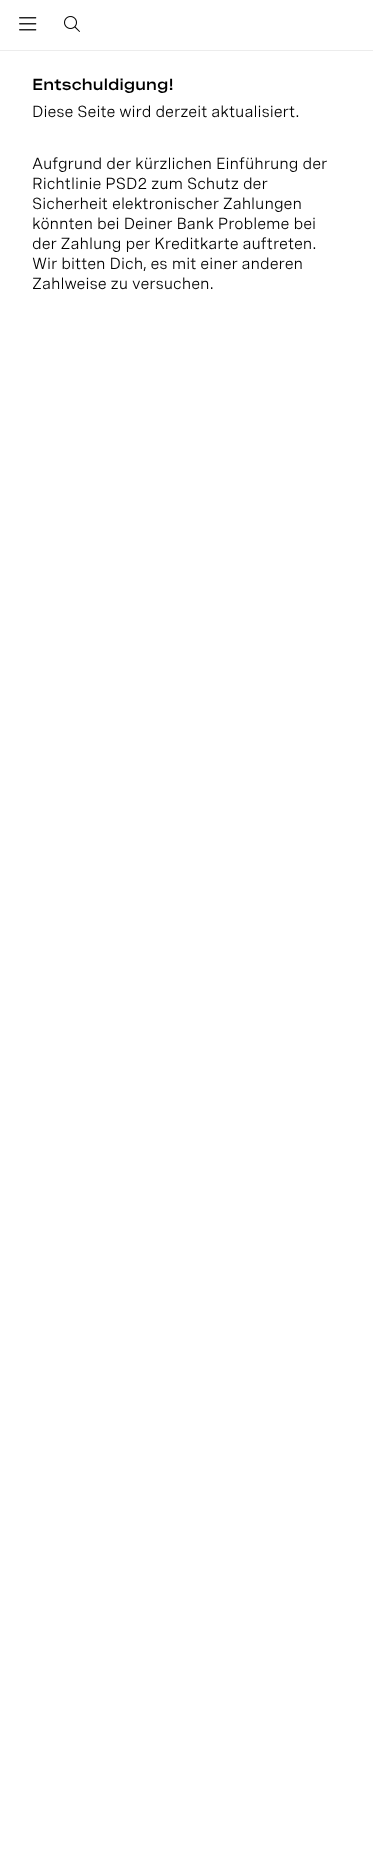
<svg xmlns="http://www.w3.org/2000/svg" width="373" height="1857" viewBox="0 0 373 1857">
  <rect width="100%" height="100%" fill="#ffffff"/>
  <rect x="0" y="50" width="373" height="1" fill="#ececec"/>
  <image x="19" y="17" width="18" height="14" href="img1.png"/>
  <image x="64" y="16" width="16" height="16" href="img2.png"/>
  <text x="32" y="90" font-family="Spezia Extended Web" font-size="16" font-weight="600" letter-spacing="-0.25" fill="#000000">Entschuldigung!</text>
  <text x="32" y="117" font-family="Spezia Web" font-size="16" fill="#000000">Diese Seite wird derzeit aktualisiert.</text>
  <text x="32" y="169" font-family="Spezia Web" font-size="16" fill="#000000">Aufgrund der kürzlichen Einführung der</text>
  <text x="32" y="189" font-family="Spezia Web" font-size="16" fill="#000000">Richtlinie PSD2 zum Schutz der</text>
  <text x="32" y="209" font-family="Spezia Web" font-size="16" fill="#000000">Sicherheit elektronischer Zahlungen</text>
  <text x="32" y="229" font-family="Spezia Web" font-size="16" fill="#000000">könnten bei Deiner Bank Probleme bei</text>
  <text x="32" y="249" font-family="Spezia Web" font-size="16" fill="#000000">der Zahlung per Kreditkarte auftreten.</text>
  <text x="32" y="269" font-family="Spezia Web" font-size="16" fill="#000000">Wir bitten Dich, es mit einer anderen</text>
  <text x="32" y="289" font-family="Spezia Web" font-size="16" fill="#000000">Zahlweise zu versuchen.</text>
</svg>
